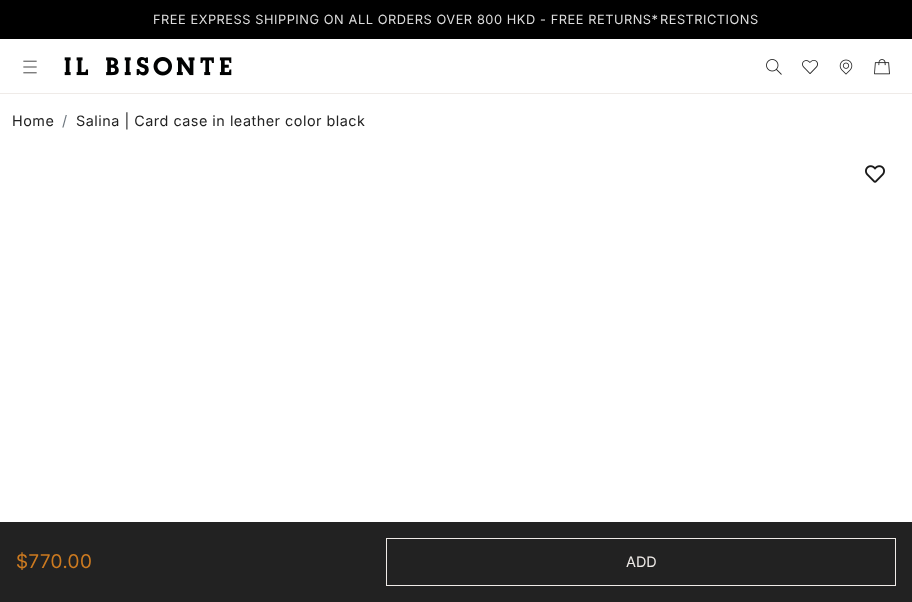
<svg xmlns="http://www.w3.org/2000/svg" width="912" height="602" viewBox="0 0 912 602">
  <rect width="100%" height="100%" fill="#ffffff"/>
  <rect x="0" y="0" width="912" height="39" fill="#000000"/>
  <text x="153" y="24" word-spacing="0.25" font-family="Inter" font-size="12.8" letter-spacing="0.5" fill="#dddddd">FREE EXPRESS SHIPPING ON ALL ORDERS OVER 800 HKD - FREE RETURNS*</text>
  <text x="660" y="24" font-family="Inter" font-size="12.8" letter-spacing="0.5" fill="#dddddd">RESTRICTIONS</text>
  <rect x="0" y="93" width="912" height="1" fill="#efebe8"/>
  <image x="23" y="60" width="14" height="14" href="img1.png"/>
  <image x="64" y="57" width="168" height="19" href="img2.png"/>
  <image x="766" y="59" width="16" height="16" href="img3.png"/>
  <image x="802" y="60" width="16" height="14" href="img4.png"/>
  <image x="839" y="59" width="14" height="16" href="img5.png"/>
  <image x="874" y="59" width="16" height="16" href="img6.png"/>
  <text x="12" y="126" font-family="Inter" font-size="14.4" letter-spacing="0.5" fill="#222222">Home</text>
  <text x="62" y="126" font-family="Inter" font-size="14.4" letter-spacing="0.5" fill="#6c757d">/</text>
  <text x="76" y="126" font-family="Inter" font-size="14.4" letter-spacing="0.5" fill="#222222">Salina | Card case in leather color black</text>
  <image x="865" y="165" width="20" height="18" href="img7.png"/>
  <rect x="0" y="522" width="912" height="80" fill="#222222"/>
  <text x="16" y="568" font-family="'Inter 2'" font-size="19" letter-spacing="0.5" fill="#cc7a20">$770.00</text>
  <rect x="386.5" y="538.5" width="509" height="47" fill="none" stroke="#efebe8"/>
  <text x="626" y="567" font-family="Inter" font-size="14.4" fill="#efebe8">ADD</text>
</svg>
